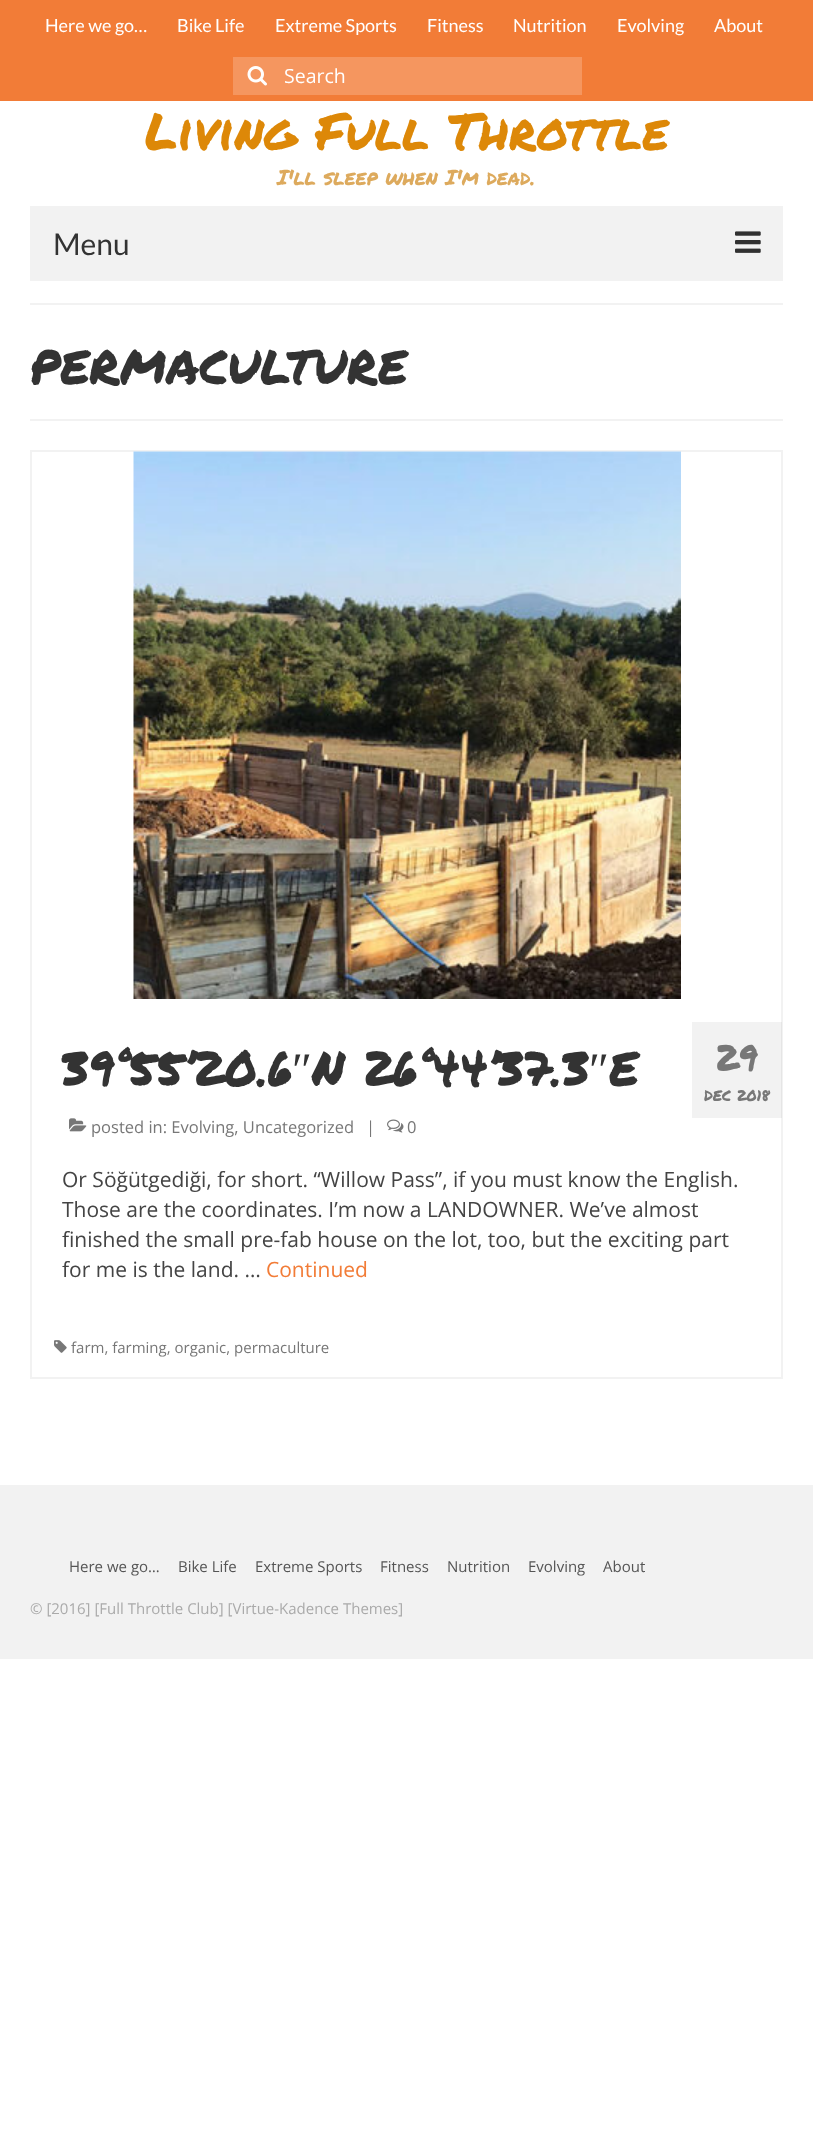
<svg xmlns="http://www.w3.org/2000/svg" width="813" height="2129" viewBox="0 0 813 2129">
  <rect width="100%" height="100%" fill="#ffffff"/>
  <rect x="0" y="0" width="813" height="101" fill="#f27c37"/>
  <text x="45" y="32" font-family="Lato" font-size="18" fill="#ffffff">Here we go…</text>
  <text x="177" y="32" font-family="Lato" font-size="18" fill="#ffffff">Bike Life</text>
  <text x="275" y="32" font-family="Lato" font-size="18" fill="#ffffff">Extreme Sports</text>
  <text x="427" y="32" font-family="Lato" font-size="18" fill="#ffffff">Fitness</text>
  <text x="513" y="32" font-family="Lato" font-size="18" fill="#ffffff">Nutrition</text>
  <text x="617" y="32" font-family="Lato" font-size="18" fill="#ffffff">Evolving</text>
  <text x="714" y="32" font-family="Lato" font-size="18" fill="#ffffff">About</text>
  <rect x="233" y="57" width="349" height="38" fill="#f5965f"/>
  <image x="247" y="66" width="20" height="20" href="img1.png"/>
  <text x="284" y="83" font-family="Open Sans" font-size="19.5" fill="#ffffff">Search</text>
  <text x="145" y="150" font-family="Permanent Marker" font-size="51" fill="#dd8808">Living Full Throttle</text>
  <text x="277" y="185" font-family="Permanent Marker" font-size="21" fill="#ddaa5d">I'll sleep when I'm dead.</text>
  <rect x="30" y="206" width="753" height="75" fill="#f2f2f2"/>
  <text x="53" y="255" font-family="Lato" font-size="30" fill="#333333">Menu</text>
  <image x="735" y="231" width="26" height="22" href="img2.png"/>
  <rect x="30" y="303" width="753" height="2" fill="#f2f2f2"/>
  <rect x="30" y="419" width="753" height="2" fill="#f2f2f2"/>
  <text x="30" y="384" font-family="Permanent Marker" font-size="57" fill="#333333">permaculture</text>
  <rect x="31" y="451" width="751" height="927" fill="none" stroke="#f2f2f2" stroke-width="2"/>
  <image x="133" y="451" width="548" height="548" href="img3.png"/>
  <text x="62" y="1086" font-family="Permanent Marker" font-size="48" fill="#333333">39°55’20.6</text>
  <text x="292" y="1086" font-family="Liberation Serif" font-size="48" fill="#333333">″</text>
  <text x="312" y="1086" font-family="Permanent Marker" font-size="48" fill="#333333">N 26°44’37.3</text>
  <text x="589" y="1086" font-family="Liberation Serif" font-size="48" fill="#333333">″</text>
  <text x="609" y="1086" font-family="Permanent Marker" font-size="48" fill="#333333">E</text>
  <image x="69" y="1118" width="18" height="14" href="img4.png"/>
  <text x="91" y="1133" font-family="Open Sans" font-size="16.5" fill="#777777">posted in: Evolving, Uncategorized</text>
  <text x="366" y="1133" font-family="Open Sans" font-size="16.5" fill="#777777">|</text>
  <image x="387" y="1119" width="17" height="14" href="img5.png"/>
  <text x="407" y="1133" font-family="Open Sans" font-size="16.5" fill="#777777">0</text>
  <rect x="692" y="1022" width="90" height="96" fill="#000000" fill-opacity="0.05"/>
  <text x="715" y="1071" font-family="Permanent Marker" font-size="36" fill="#777777">29</text>
  <text x="704" y="1101" font-family="Permanent Marker" font-size="15" fill="#777777">DEC 2018</text>
  <text x="62" y="1187" font-family="Open Sans" font-size="21" fill="#444444">Or Söğütgediği, for short. “Willow Pass”, if you must know the English.</text>
  <text x="62" y="1217" font-family="Open Sans" font-size="21" fill="#444444">Those are the coordinates. I’m now a LANDOWNER. We’ve almost</text>
  <text x="62" y="1247" font-family="Open Sans" font-size="21" fill="#444444">finished the small pre-fab house on the lot, too, but the exciting part</text>
  <text x="62" y="1277" font-family="Open Sans" font-size="21" fill="#444444">for me is the land. …</text>
  <text x="266" y="1277" font-family="Open Sans" font-size="21" fill="#f27c37">Continued</text>
  <image x="54" y="1340" width="13" height="13" href="img6.png"/>
  <text x="71" y="1353" font-family="Open Sans" font-size="15" fill="#777777">farm, farming, organic, permaculture</text>
  <rect x="0" y="1485" width="813" height="174" fill="#f2f2f2"/>
  <text x="69" y="1572" font-family="Open Sans" font-size="15" fill="#555555">Here we go…</text>
  <text x="178" y="1572" font-family="Open Sans" font-size="15" fill="#555555">Bike Life</text>
  <text x="255" y="1572" font-family="Open Sans" font-size="15" fill="#555555">Extreme Sports</text>
  <text x="380" y="1572" font-family="Open Sans" font-size="15" fill="#555555">Fitness</text>
  <text x="447" y="1572" font-family="Open Sans" font-size="15" fill="#555555">Nutrition</text>
  <text x="528" y="1572" font-family="Open Sans" font-size="15" fill="#555555">Evolving</text>
  <text x="603" y="1572" font-family="Open Sans" font-size="15" fill="#555555">About</text>
  <text x="30" y="1614" font-family="Open Sans" font-size="15" fill="#aaaaaa">© [2016] [Full Throttle Club] [Virtue-Kadence Themes]</text>
</svg>
